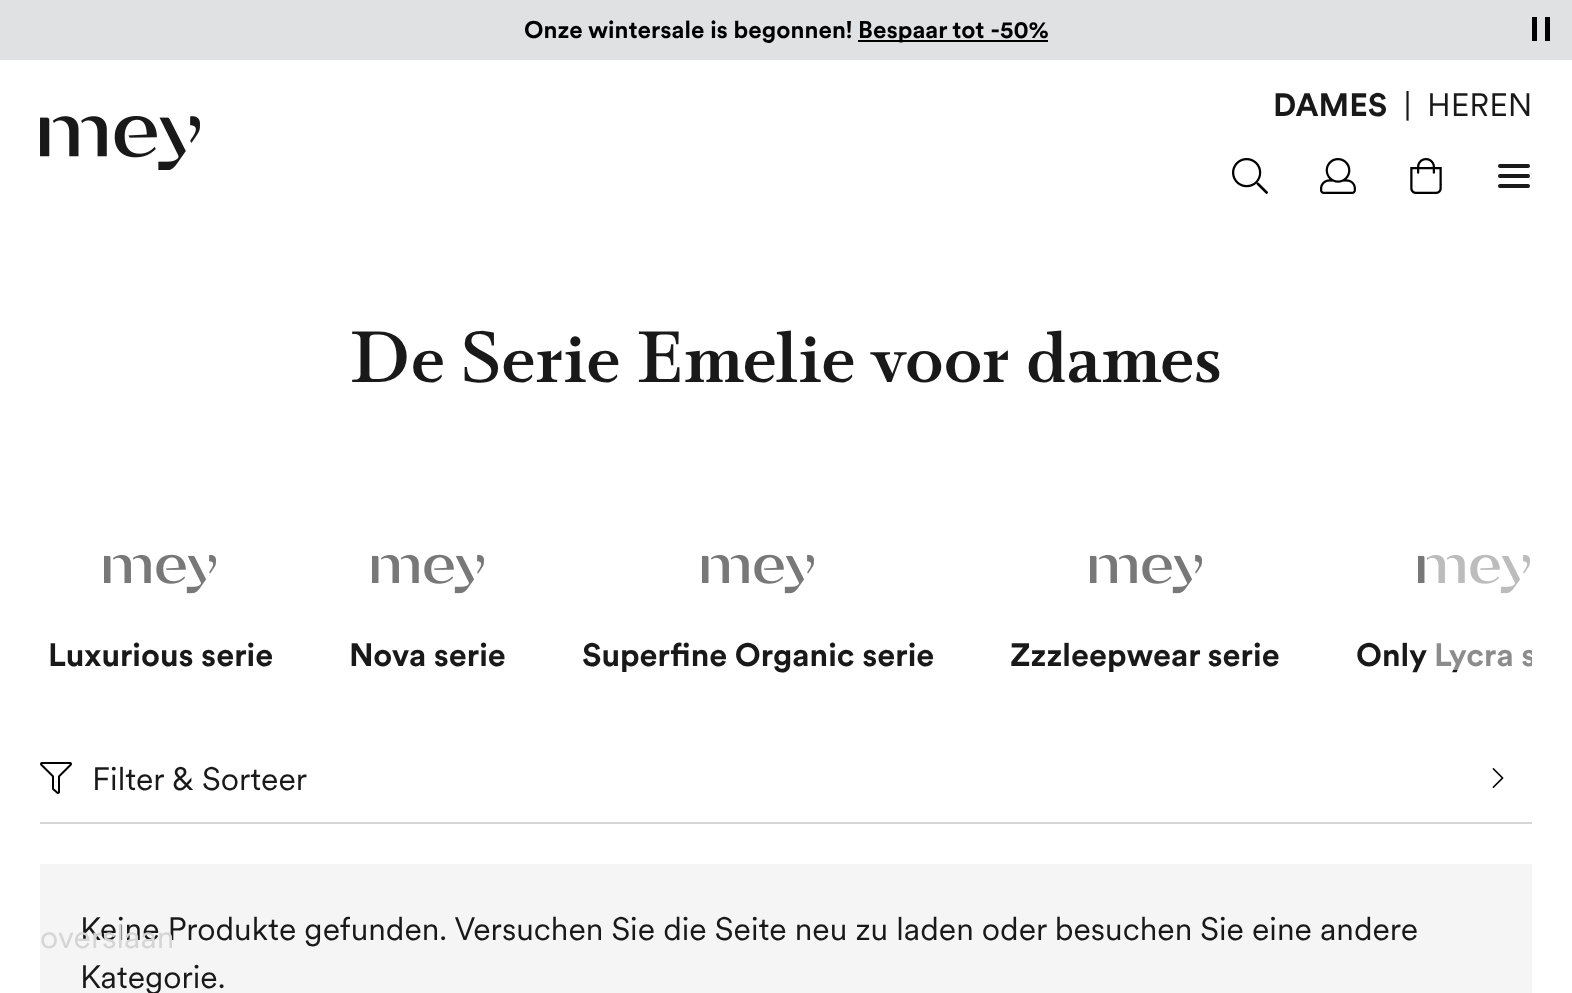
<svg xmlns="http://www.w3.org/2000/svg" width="1572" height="993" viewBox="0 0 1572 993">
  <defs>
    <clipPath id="clip1"><rect x="40" y="510" width="1492" height="176"/></clipPath>
  </defs>
  <rect width="100%" height="100%" fill="#ffffff"/>
  <rect x="0" y="0" width="1572" height="60" fill="#e0e1e3"/>
  <text x="524" y="38" font-family="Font" font-size="24" font-weight="bold" fill="#000000">Onze wintersale is begonnen!</text>
  <rect x="858" y="40" width="190" height="2" fill="#000000"/>
  <text x="858" y="38" font-family="Font" font-size="24" font-weight="bold" fill="#000000">Bespaar tot -50%</text>
  <rect x="1532" y="17" width="5" height="24" fill="#000000"/>
  <rect x="1545" y="17" width="5" height="24" fill="#000000"/>
  <text x="1273" y="116" font-family="Font" font-size="32" font-weight="bold" fill="#191919">DAMES</text>
  <text x="1404" y="116" font-family="Font" font-size="32" fill="#191919">|</text>
  <text x="1427" y="116" font-family="Font" font-size="32" fill="#191919">HEREN</text>
  <image x="40" y="116" width="160" height="54" href="img1.png"/>
  <image x="1232" y="158" width="36" height="36" href="img2.png"/>
  <image x="1320" y="158" width="36" height="36" href="img3.png"/>
  <image x="1410" y="158" width="32" height="36" href="img4.png"/>
  <path d="M1500 166H1528M1500 176H1528M1500 186H1528" fill="none" stroke="#191919" stroke-width="4" stroke-linecap="round"/>
  <text x="350" y="382" font-family="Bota" font-size="72" font-weight="bold" fill="#191919">De Serie Emelie voor dames</text>
  <image x="1418" y="554" width="112" height="40" href="img5.png"/>
  <g clip-path="url(#clip1)">
    <text x="1356" y="666" font-family="Font" font-size="32" font-weight="bold" fill="#191919">Only Lycra s</text>
  </g>
  <rect x="1428" y="554" width="104" height="116" fill="#ffffff" fill-opacity="0.5"/>
  <image x="104" y="554" width="112" height="40" href="img5.png"/>
  <text x="48" y="666" font-family="Font" font-size="32" font-weight="bold" fill="#191919">Luxurious serie</text>
  <image x="372" y="554" width="112" height="40" href="img5.png"/>
  <text x="349" y="666" font-family="Font" font-size="32" font-weight="bold" fill="#191919">Nova serie</text>
  <image x="702" y="554" width="112" height="40" href="img5.png"/>
  <text x="582" y="666" font-family="Font" font-size="32" font-weight="bold" fill="#191919">Superfine Organic serie</text>
  <image x="1090" y="554" width="112" height="40" href="img5.png"/>
  <text x="1010" y="666" font-family="Font" font-size="32" font-weight="bold" fill="#191919">Zzzleepwear serie</text>
  <rect x="40" y="822" width="1492" height="2" fill="#d5d5d5"/>
  <image x="40" y="762" width="32" height="32" href="img6.png"/>
  <text x="92" y="790" font-family="Font" font-size="32" fill="#191919">Filter &amp; Sorteer</text>
  <image x="1492" y="768" width="12" height="20" href="img7.png"/>
  <rect x="40" y="864" width="1492" height="129" fill="#f5f5f5"/>
  <text x="80" y="940" font-family="Font" font-size="32" fill="#191919">Keine Produkte gefunden. Versuchen Sie die Seite neu zu laden oder besuchen Sie eine andere</text>
  <text x="80" y="988" font-family="Font" font-size="32" fill="#191919">Kategorie.</text>
  <text x="40" y="948" font-family="Font" font-size="32" fill="#d5d5d5">overslaan</text>
</svg>
